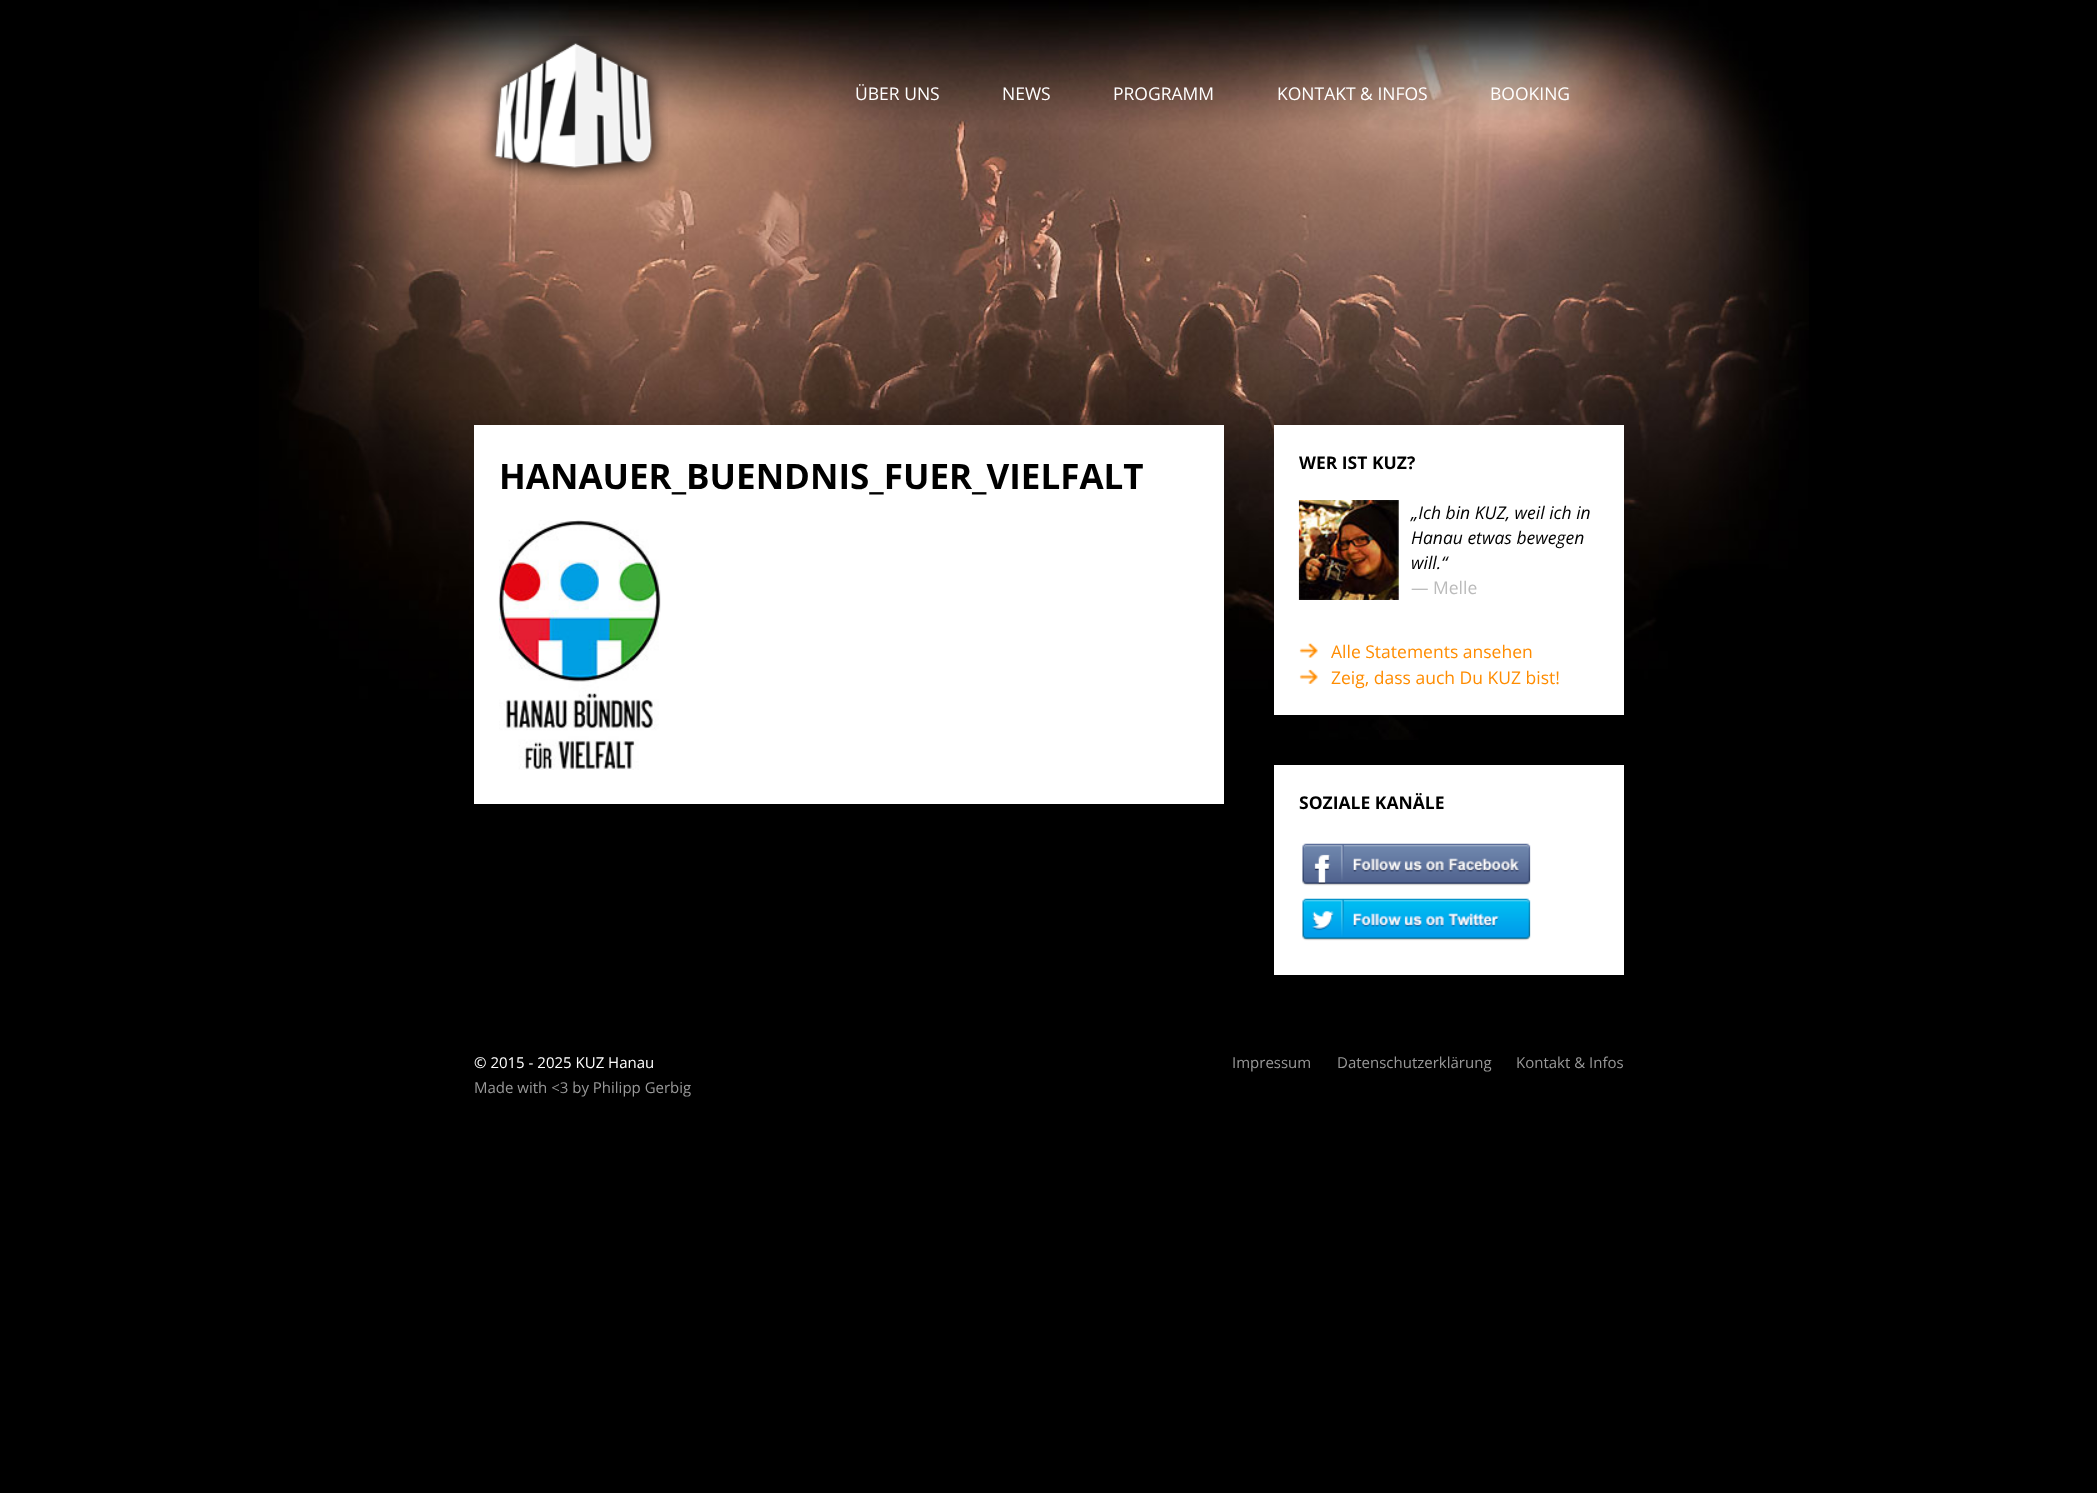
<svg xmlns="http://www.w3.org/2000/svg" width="2097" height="1493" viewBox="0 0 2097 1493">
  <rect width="100%" height="100%" fill="#000000"/>
  <image x="259" y="0" width="1550" height="740" href="img1.png"/>
  <image x="480" y="36" width="188" height="149" href="img2.png"/>
  <text x="855" y="100" font-family="Open Sans" font-size="17.5" fill="#ffffff">ÜBER UNS</text>
  <text x="1002" y="100" font-family="Open Sans" font-size="17.5" fill="#ffffff">NEWS</text>
  <text x="1113" y="100" font-family="Open Sans" font-size="17.5" fill="#ffffff">PROGRAMM</text>
  <text x="1277" y="100" font-family="Open Sans" font-size="17.5" fill="#ffffff">KONTAKT &amp; INFOS</text>
  <text x="1490" y="100" font-family="Open Sans" font-size="17.5" fill="#ffffff">BOOKING</text>
  <rect x="474" y="425" width="750" height="379" fill="#ffffff"/>
  <text x="499" y="489" font-family="Open Sans" font-size="35" font-weight="bold" fill="#000000">HANAUER_BUENDNIS_FUER_VIELFALT</text>
  <image x="498" y="520" width="163" height="250" href="img3.png"/>
  <rect x="1274" y="425" width="350" height="290" fill="#ffffff"/>
  <text x="1299" y="469" font-family="Open Sans" font-size="17.5" font-weight="bold" fill="#000000">WER IST KUZ?</text>
  <image x="1298" y="500" width="101" height="100" href="img4.png"/>
  <text x="1411" y="519" font-family="Open Sans" font-size="17.5" font-style="italic" fill="#000000">„Ich bin KUZ, weil ich in</text>
  <text x="1411" y="544" font-family="Open Sans" font-size="17.5" font-style="italic" fill="#000000">Hanau etwas bewegen</text>
  <text x="1411" y="569" font-family="Open Sans" font-size="17.5" font-style="italic" fill="#000000">will.“</text>
  <text x="1411" y="594" font-family="Open Sans" font-size="17.5" fill="#bbbbbb">— Melle</text>
  <image x="1299" y="643" width="19" height="15" href="img5.png"/>
  <text x="1331" y="658" font-family="Open Sans" font-size="17.5" fill="#ff8c00">Alle Statements ansehen</text>
  <image x="1299" y="669" width="19" height="15" href="img6.png"/>
  <text x="1331" y="684" font-family="Open Sans" font-size="17.5" fill="#ff8c00">Zeig, dass auch Du KUZ bist!</text>
  <rect x="1274" y="765" width="350" height="210" fill="#ffffff"/>
  <text x="1299" y="809" font-family="Open Sans" font-size="17.5" font-weight="bold" fill="#000000">SOZIALE KANÄLE</text>
  <image x="1302" y="843" width="229" height="43" href="img7.png"/>
  <image x="1302" y="898" width="229" height="43" href="img8.png"/>
  <text x="474" y="1068" font-family="Open Sans" font-size="15" fill="#ffffff">© 2015 - 2025 KUZ Hanau</text>
  <text x="474" y="1093" font-family="Open Sans" font-size="15" fill="#999999">Made with &lt;3 by Philipp Gerbig</text>
  <text x="1232" y="1068" font-family="Open Sans" font-size="15" fill="#999999">Impressum</text>
  <text x="1337" y="1068" font-family="Open Sans" font-size="15" fill="#999999">Datenschutzerklärung</text>
  <text x="1516" y="1068" font-family="Open Sans" font-size="15" fill="#999999">Kontakt &amp; Infos</text>
</svg>
